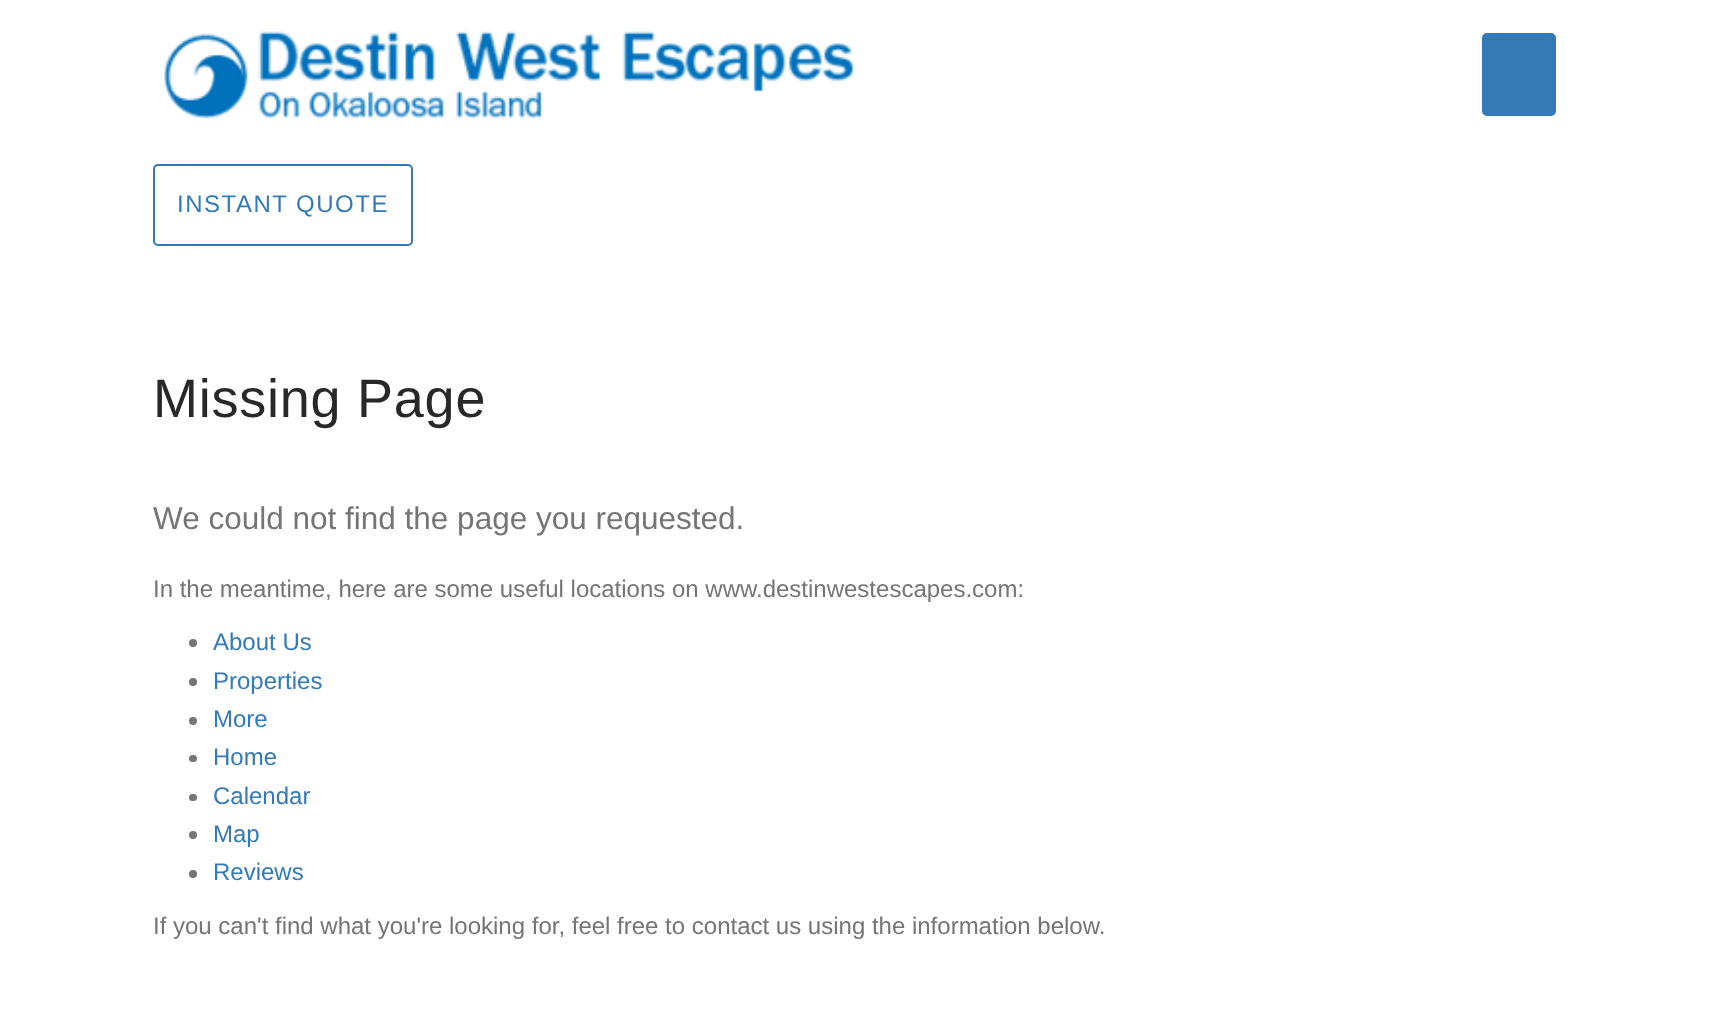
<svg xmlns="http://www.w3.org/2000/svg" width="1716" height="1034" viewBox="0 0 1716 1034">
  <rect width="100%" height="100%" fill="#ffffff"/>
  <image x="163" y="31" width="692" height="88" href="img1.png"/>
  <rect x="1483" y="34" width="72" height="81" rx="4" fill="#337ab7" stroke="#337ab7" stroke-width="2"/>
  <rect x="154" y="165" width="258" height="80" rx="4" fill="none" stroke="#337ab7" stroke-width="2"/>
  <text x="177" y="212" font-family="Liberation Sans" font-size="24" letter-spacing="1.5" fill="#337ab7">INSTANT QUOTE</text>
  <text x="153" y="417" font-family="Liberation Sans" font-size="54" letter-spacing="0.75" fill="#292727">Missing Page</text>
  <text x="153" y="529" font-family="Liberation Sans" font-size="31.5" fill="#757575">We could not find the page you requested.</text>
  <text x="153" y="597" font-family="Liberation Sans" font-size="24" fill="#757575">In the meantime, here are some useful locations on www.destinwestescapes.com:</text>
  <circle cx="193" cy="643" r="4" fill="#757575"/>
  <text x="213" y="650" font-family="Liberation Sans" font-size="24" fill="#337ab7">About Us</text>
  <circle cx="193" cy="682" r="4" fill="#757575"/>
  <text x="213" y="689" font-family="Liberation Sans" font-size="24" fill="#337ab7">Properties</text>
  <circle cx="193" cy="721" r="4" fill="#757575"/>
  <text x="213" y="727" font-family="Liberation Sans" font-size="24" fill="#337ab7">More</text>
  <rect x="189" y="755" width="8" height="7" rx="3.5" fill="#757575"/>
  <text x="213" y="765" font-family="Liberation Sans" font-size="24" fill="#337ab7">Home</text>
  <rect x="189" y="794" width="8" height="7" rx="3.5" fill="#757575"/>
  <text x="213" y="804" font-family="Liberation Sans" font-size="24" fill="#337ab7">Calendar</text>
  <circle cx="193" cy="835" r="4" fill="#757575"/>
  <text x="213" y="842" font-family="Liberation Sans" font-size="24" fill="#337ab7">Map</text>
  <circle cx="193" cy="874" r="4" fill="#757575"/>
  <text x="213" y="880" font-family="Liberation Sans" font-size="24" fill="#337ab7">Reviews</text>
  <text x="153" y="934" font-family="Liberation Sans" font-size="24" fill="#757575">If you can't find what you're looking for, feel free to contact us using the information below.</text>
</svg>
